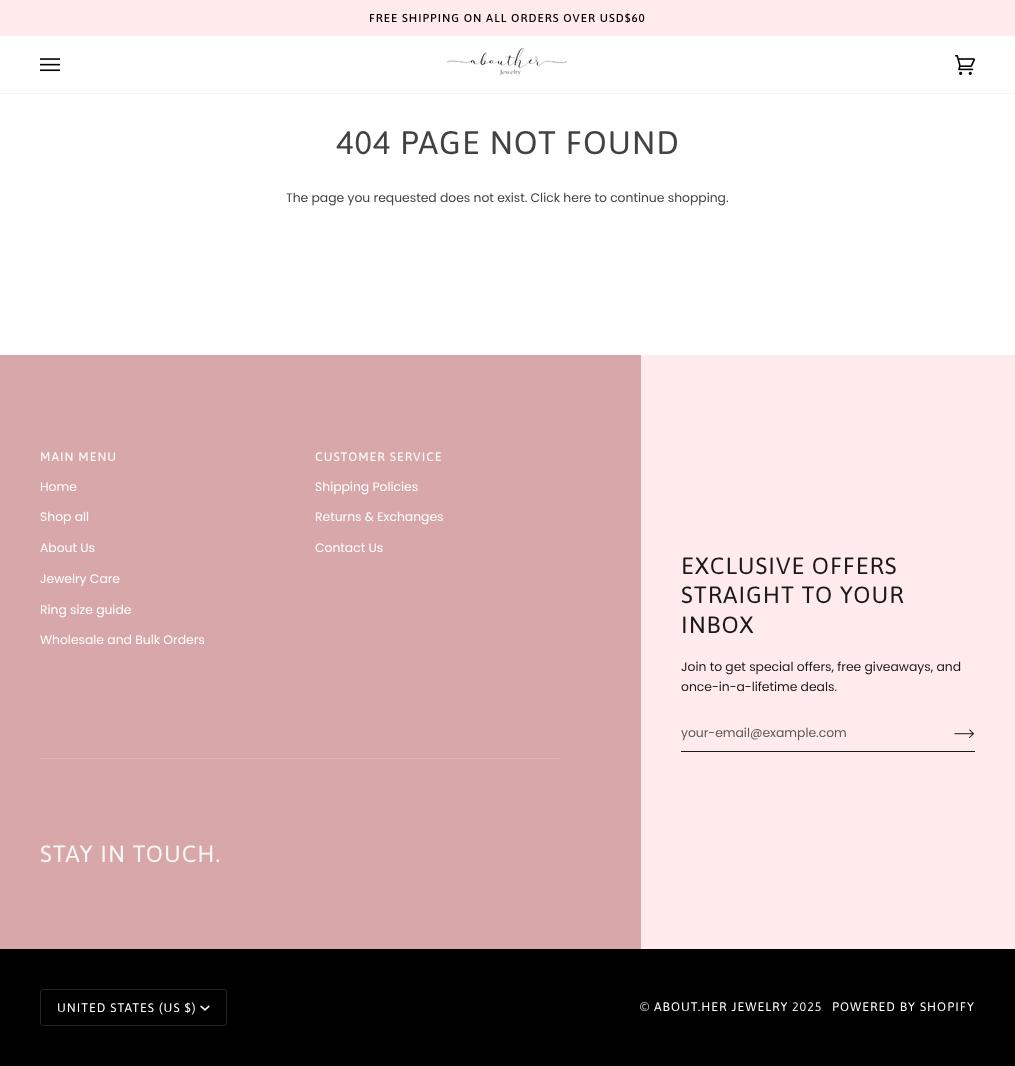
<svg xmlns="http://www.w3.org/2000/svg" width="1015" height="1066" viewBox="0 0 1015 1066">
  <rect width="100%" height="100%" fill="#ffffff"/>
  <rect x="0" y="0" width="1015" height="36" fill="#ffebeb"/>
  <text x="369" y="22" font-family="Asap" font-size="11.5" font-weight="500" letter-spacing="1" fill="#000000">FREE SHIPPING ON ALL ORDERS OVER USD$60</text>
  <rect x="0" y="93" width="1015" height="1" fill="#f7f5f4"/>
  <image x="40" y="58" width="20" height="14" href="img1.png"/>
  <image x="447" y="48" width="120" height="28" href="img2.png"/>
  <image x="955" y="55" width="20" height="20" href="img3.png"/>
  <text x="336" y="154" font-family="Asap" font-size="32.5" letter-spacing="1" fill="#424242">404 PAGE NOT FOUND</text>
  <text x="286" y="202" font-family="Poppins" font-size="12.35" fill="#424242">The page you requested does not exist. Click here to continue shopping.</text>
  <rect x="0" y="355" width="641" height="594" fill="#d7a7aa"/>
  <text x="40" y="461" font-family="Asap" font-size="12.35" font-weight="500" letter-spacing="1" fill="#fbf6f7">MAIN MENU</text>
  <text x="40" y="491" font-family="Poppins" font-size="12.35" fill="#ffffff">Home</text>
  <text x="40" y="521" font-family="Poppins" font-size="12.35" fill="#ffffff">Shop all</text>
  <text x="40" y="552" font-family="Poppins" font-size="12.35" fill="#ffffff">About Us</text>
  <text x="40" y="583" font-family="Poppins" font-size="12.35" fill="#ffffff">Jewelry Care</text>
  <text x="40" y="614" font-family="Poppins" font-size="12.35" fill="#ffffff">Ring size guide</text>
  <text x="40" y="644" font-family="Poppins" font-size="12.35" fill="#ffffff">Wholesale and Bulk Orders</text>
  <text x="315" y="461" font-family="Asap" font-size="12.35" font-weight="500" letter-spacing="1" fill="#fbf6f7">CUSTOMER SERVICE</text>
  <text x="315" y="491" font-family="Poppins" font-size="12.35" fill="#ffffff">Shipping Policies</text>
  <text x="315" y="521" font-family="Poppins" font-size="12.35" fill="#ffffff">Returns &amp; Exchanges</text>
  <text x="315" y="552" font-family="Poppins" font-size="12.35" fill="#ffffff">Contact Us</text>
  <rect x="40" y="758" width="521" height="1" fill="#ddb4b7"/>
  <text x="40" y="862" font-family="Asap" font-size="23.5" letter-spacing="1" fill="#fbf6f7">STAY IN TOUCH.</text>
  <rect x="641" y="355" width="374" height="594" fill="#ffebeb"/>
  <text x="681" y="574" font-family="Asap" font-size="23.5" letter-spacing="1" fill="#1a1818">EXCLUSIVE OFFERS</text>
  <text x="681" y="603" font-family="Asap" font-size="23.5" letter-spacing="1" fill="#1a1818">STRAIGHT TO YOUR</text>
  <text x="681" y="633" font-family="Asap" font-size="23.5" letter-spacing="1" fill="#1a1818">INBOX</text>
  <text x="681" y="671" font-family="Poppins" font-size="12.35" fill="#1a1818">Join to get special offers, free giveaways, and</text>
  <text x="681" y="691" font-family="Poppins" font-size="12.35" fill="#1a1818">once-in-a-lifetime deals.</text>
  <rect x="681" y="751" width="294" height="1" fill="#1a1818"/>
  <text x="681" y="737" font-family="Poppins" font-size="12.35" fill="#5f5757">your-email@example.com</text>
  <image x="954" y="729" width="21" height="9" href="img4.png"/>
  <rect x="0" y="949" width="1015" height="117" fill="#000000"/>
  <rect x="40.5" y="989.5" width="186" height="36" rx="2.5" fill="none" stroke="#262626"/>
  <text x="57" y="1012" font-family="Asap" font-size="12.35" letter-spacing="1" fill="#ffffff">UNITED STATES (US $)</text>
  <image x="200" y="1005" width="10" height="6" href="img5.png"/>
  <text x="640" y="1011" font-family="Asap" font-size="12.35" letter-spacing="1" fill="#e6e6e6">©</text>
  <text x="654" y="1011" font-family="Asap" font-size="12.35" letter-spacing="1" fill="#ffffff">ABOUT.HER JEWELRY</text>
  <text x="792" y="1011" font-family="Asap" font-size="12.35" letter-spacing="1" fill="#e6e6e6">2025</text>
  <text x="832" y="1011" font-family="Asap" font-size="12.35" letter-spacing="1" fill="#ffffff">POWERED BY SHOPIFY</text>
</svg>
